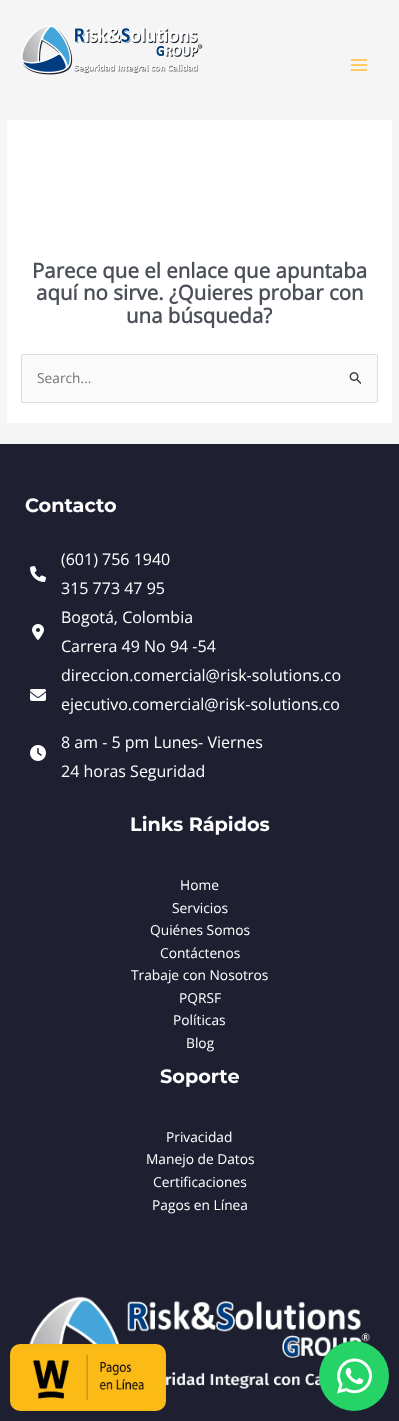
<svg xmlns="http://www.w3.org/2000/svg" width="399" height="1421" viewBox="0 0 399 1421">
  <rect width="100%" height="100%" fill="#f5f5f5"/>
  <image x="21" y="25" width="182" height="50" href="img1.png"/>
  <image x="350" y="59" width="18" height="12" href="img2.png"/>
  <rect x="7" y="120" width="385" height="303" fill="#ffffff"/>
  <text x="32" y="278" font-family="Open Sans" font-size="20.5" font-weight="bold" fill="#4b4f58">Parece que el enlace que apuntaba</text>
  <text x="36" y="300" font-family="Open Sans" font-size="20.5" font-weight="bold" fill="#4b4f58">aquí no sirve. ¿Quieres probar con</text>
  <text x="126" y="323" font-family="Open Sans" font-size="20.5" font-weight="bold" fill="#4b4f58">una búsqueda?</text>
  <rect x="21.5" y="354.5" width="356" height="48" rx="1.5" fill="#fafafa" stroke="#dddddd"/>
  <text x="37" y="383" font-family="Open Sans" font-size="13.75" fill="#757575">Search...</text>
  <image x="349" y="372" width="12" height="12" href="img3.png"/>
  <rect x="0" y="444" width="399" height="977" fill="#1e2032"/>
  <text x="25" y="512" font-family="Montserrat" font-size="19.25" font-weight="100" fill="#ffffff">Contacto</text>
  <image x="30" y="566" width="16" height="16" href="img4.png"/>
  <text x="61" y="565" font-family="Open Sans" font-size="16" fill="#ffffff">(601) 756 1940</text>
  <text x="61" y="594" font-family="Open Sans" font-size="16" fill="#ffffff">315 773 47 95</text>
  <image x="32" y="624" width="12" height="16" href="img5.png"/>
  <text x="61" y="623" font-family="Open Sans" font-size="16" fill="#ffffff">Bogotá, Colombia</text>
  <text x="61" y="652" font-family="Open Sans" font-size="16" fill="#ffffff">Carrera 49 No 94 -54</text>
  <image x="30" y="689" width="16" height="12" href="img6.png"/>
  <text x="61" y="681" font-family="Open Sans" font-size="16" fill="#ffffff">direccion.comercial@risk-solutions.co</text>
  <text x="61" y="710" font-family="Open Sans" font-size="16" fill="#ffffff">ejecutivo.comercial@risk-solutions.co</text>
  <image x="30" y="745" width="16" height="16" href="img7.png"/>
  <text x="61" y="748" font-family="Open Sans" font-size="16" fill="#ffffff">8 am - 5 pm Lunes- Viernes</text>
  <text x="61" y="777" font-family="Open Sans" font-size="16" fill="#ffffff">24 horas Seguridad</text>
  <text x="130" y="831" font-family="Montserrat" font-size="19.25" font-weight="100" fill="#ffffff">Links Rápidos</text>
  <text x="180" y="890" font-family="Open Sans" font-size="13.75" fill="#ffffff">Home</text>
  <text x="172" y="913" font-family="Open Sans" font-size="13.75" fill="#ffffff">Servicios</text>
  <text x="150" y="935" font-family="Open Sans" font-size="13.75" fill="#ffffff">Quiénes Somos</text>
  <text x="160" y="958" font-family="Open Sans" font-size="13.75" fill="#ffffff">Contáctenos</text>
  <text x="131" y="980" font-family="Open Sans" font-size="13.75" fill="#ffffff">Trabaje con Nosotros</text>
  <text x="179" y="1003" font-family="Open Sans" font-size="13.75" fill="#ffffff">PQRSF</text>
  <text x="173" y="1025" font-family="Open Sans" font-size="13.75" fill="#ffffff">Políticas</text>
  <text x="186" y="1048" font-family="Open Sans" font-size="13.75" fill="#ffffff">Blog</text>
  <text x="160" y="1083" font-family="Montserrat" font-size="19.25" font-weight="100" fill="#ffffff">Soporte</text>
  <text x="166" y="1142" font-family="Open Sans" font-size="13.75" fill="#ffffff">Privacidad</text>
  <text x="146" y="1164" font-family="Open Sans" font-size="13.75" fill="#ffffff">Manejo de Datos</text>
  <text x="153" y="1187" font-family="Open Sans" font-size="13.75" fill="#ffffff">Certificaciones</text>
  <text x="152" y="1210" font-family="Open Sans" font-size="13.75" fill="#ffffff">Pagos en Línea</text>
  <image x="29" y="1296" width="342" height="95" href="img8.png"/>
  <image x="10" y="1344" width="156" height="67" href="img9.png"/>
  <circle cx="354" cy="1376" r="35" fill="#25d366"/>
  <image x="337" y="1358" width="35" height="36" href="img10.png"/>
</svg>
